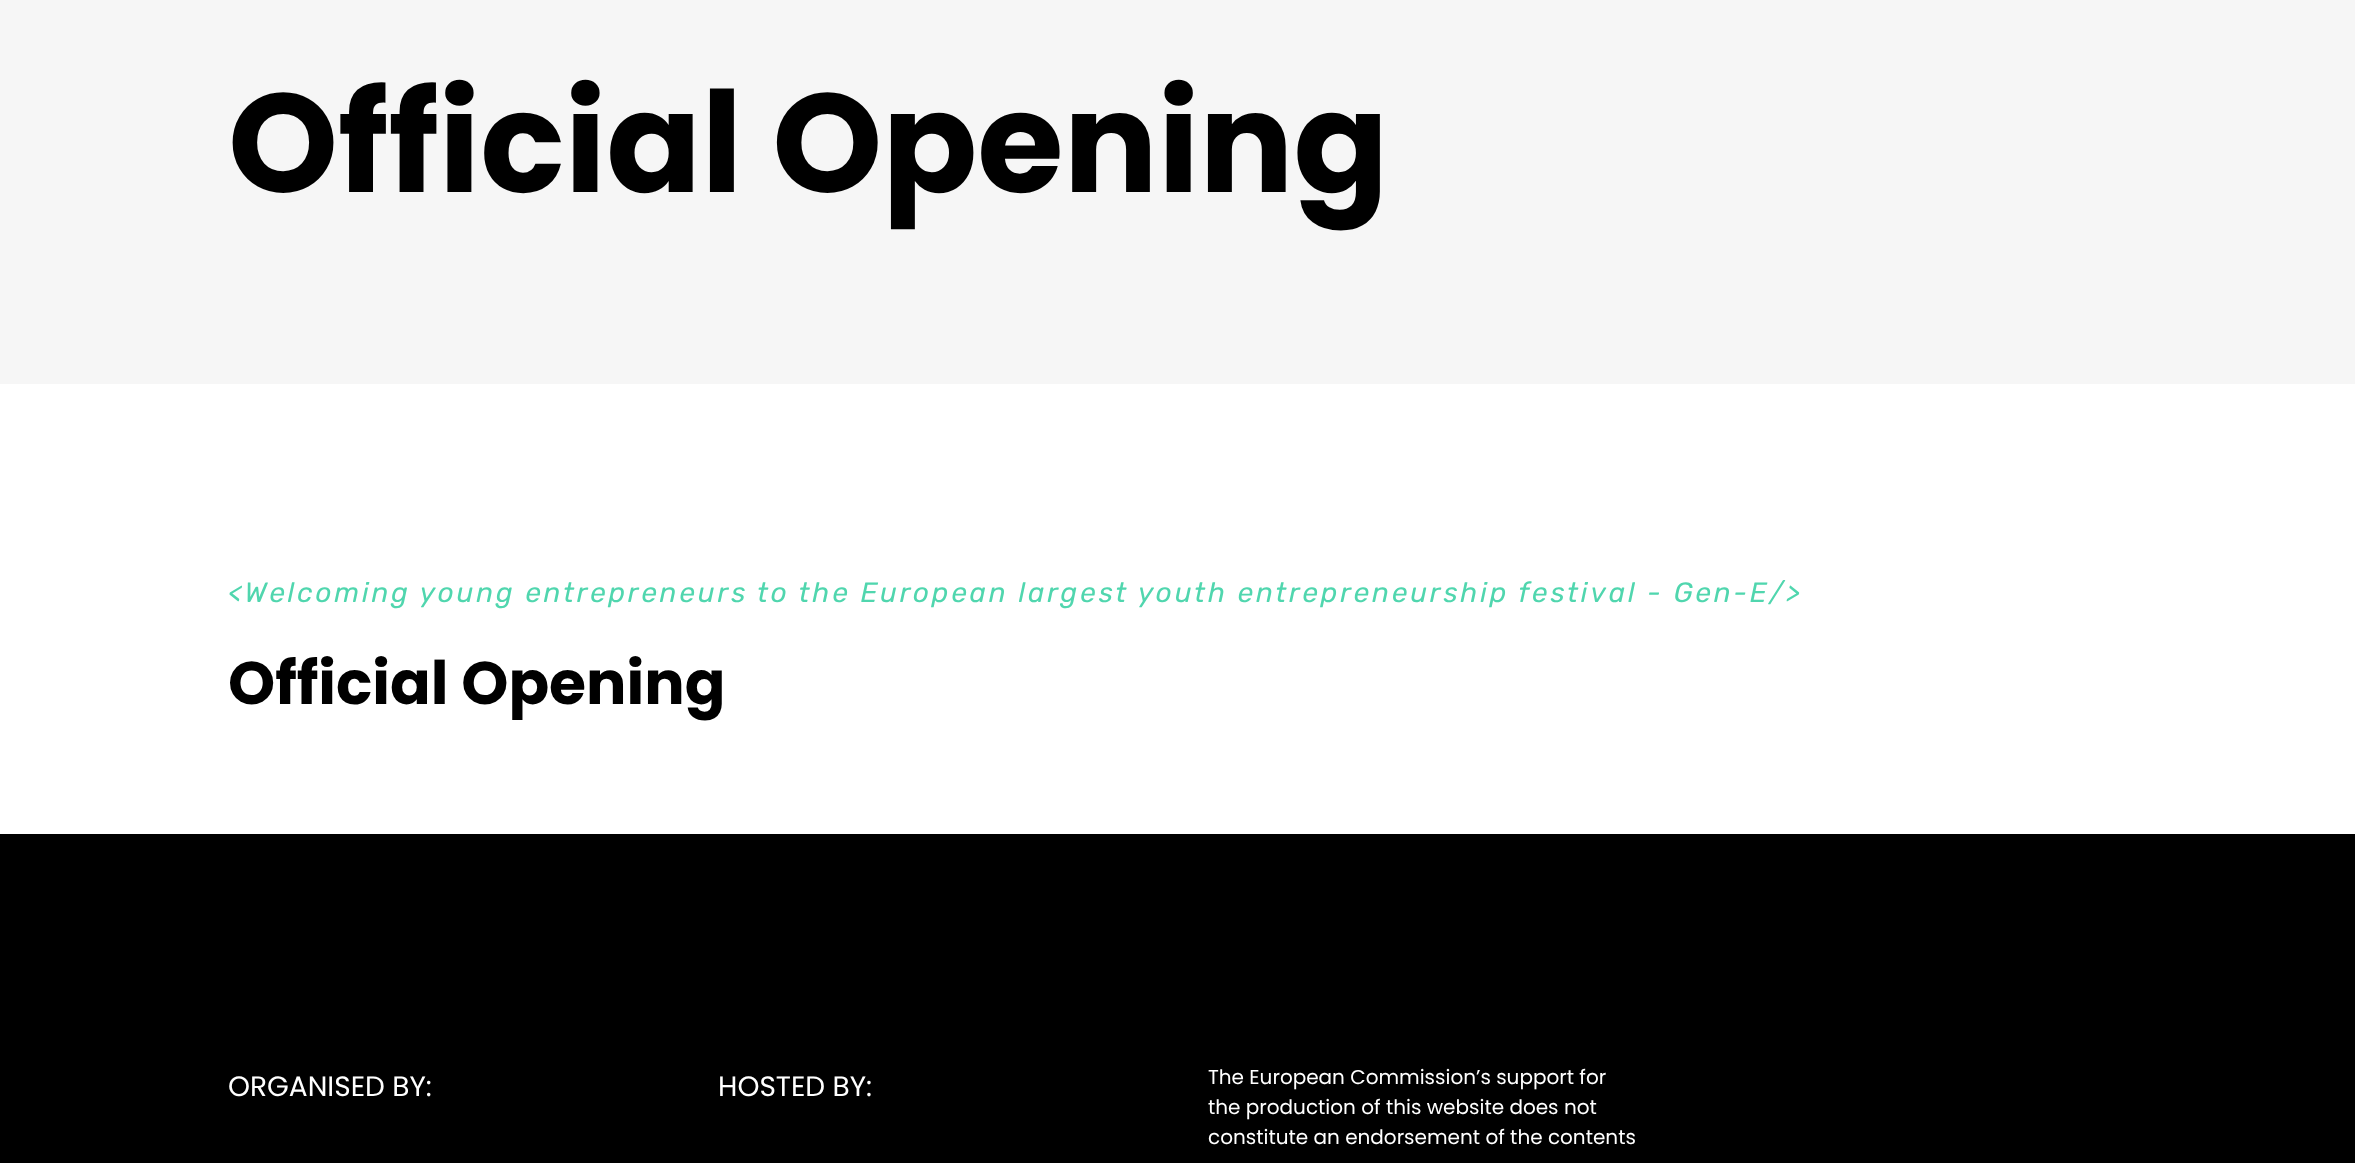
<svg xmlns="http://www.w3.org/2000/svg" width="2355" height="1163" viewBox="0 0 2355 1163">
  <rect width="100%" height="100%" fill="#ffffff"/>
  <rect x="0" y="0" width="2355" height="384" fill="#f6f6f6"/>
  <text x="228" y="192" font-family="Poppins" font-size="140" font-weight="bold" fill="#000000">Official Opening</text>
  <text x="228" y="602" font-family="Rubik" font-size="28" font-weight="300" font-style="italic" letter-spacing="2.8" fill="#50d6ae">&lt;Welcoming young entrepreneurs to the European largest youth entrepreneurship festival - Gen-E/&gt;</text>
  <text x="228" y="704" font-family="Poppins" font-size="60" font-weight="bold" fill="#000000">Official Opening</text>
  <rect x="0" y="834" width="2355" height="329" fill="#000000"/>
  <text x="228" y="1096" font-family="Poppins" font-size="28" fill="#ffffff">ORGANISED BY:</text>
  <text x="718" y="1096" font-family="Poppins" font-size="28" fill="#ffffff">HOSTED BY:</text>
  <text x="1208" y="1084" font-family="Poppins" font-size="20" fill="#ffffff">The European Commission’s support for</text>
  <text x="1208" y="1114" font-family="Poppins" font-size="20" fill="#ffffff">the production of this website does not</text>
  <text x="1208" y="1144" font-family="Poppins" font-size="20" fill="#ffffff">constitute an endorsement of the contents</text>
</svg>
